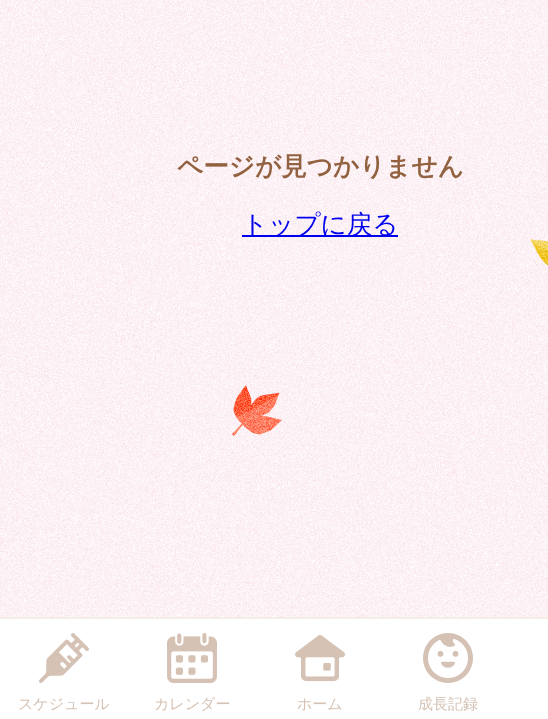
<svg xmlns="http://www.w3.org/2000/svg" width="548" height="719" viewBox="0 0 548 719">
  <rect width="100%" height="100%" fill="#ffffff"/>
  <image x="0" y="0" width="548" height="617" href="img1.png"/>
  <text x="177" y="175" font-family="WenQuanYi Zen Hei" font-size="25.6" font-weight="bold" fill="#926240">ページが見つかりません</text>
  <rect x="242" y="235" width="156" height="2" fill="#0000ee"/>
  <text x="242" y="233" font-family="WenQuanYi Zen Hei" font-size="25.6" font-weight="500" fill="#0000ee">トップに戻る</text>
  <rect x="0" y="617" width="548" height="2" fill="#f5eee5"/>
  <image x="39" y="633" width="50" height="50" href="img2.png"/>
  <text x="18" y="709" font-family="WenQuanYi Zen Hei" font-size="15" font-weight="500" fill="#d5c2b4">スケジュール</text>
  <image x="167" y="633" width="50" height="50" href="img3.png"/>
  <text x="154" y="709" font-family="WenQuanYi Zen Hei" font-size="15" font-weight="500" fill="#d5c2b4">カレンダー</text>
  <image x="295" y="635" width="50" height="47" href="img4.png"/>
  <text x="297" y="709" font-family="WenQuanYi Zen Hei" font-size="15" font-weight="500" fill="#d5c2b4">ホーム</text>
  <image x="423" y="633" width="50" height="50" href="img5.png"/>
  <text x="418" y="709" font-family="WenQuanYi Zen Hei" font-size="15" font-weight="500" fill="#d5c2b4">成長記録</text>
</svg>
